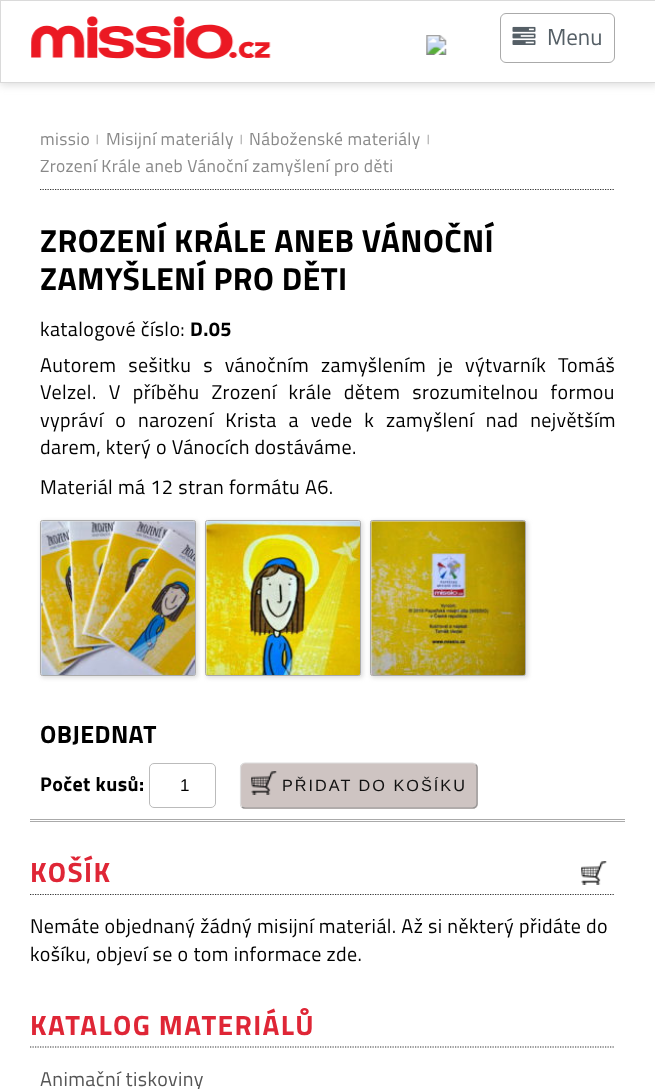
<svg xmlns="http://www.w3.org/2000/svg" width="655" height="1089" viewBox="0 0 655 1089">
  <defs>
    <filter id="blur1" x="-50%" y="-200%" width="200%" height="500%"><feGaussianBlur stdDeviation="4.5"/></filter>
    <filter id="blur2" x="-50%" y="-200%" width="200%" height="500%"><feGaussianBlur stdDeviation="2"/></filter>
  </defs>
  <rect width="100%" height="100%" fill="#ffffff"/>
  <rect x="0" y="3" width="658" height="82" fill="#dcdcdc" filter="url(#blur1)"/>
  <rect x="0.5" y="0.5" width="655" height="82" fill="#ffffff" stroke="#dadada"/>
  <image x="31" y="16" width="240" height="43" href="img1.png"/>
  <image x="426" y="35" width="21" height="20" href="img2.png"/>
  <rect x="500.5" y="13.5" width="114" height="49" rx="5.5" fill="none" stroke="#aaaaaa"/>
  <image x="512" y="26" width="24" height="19" href="img3.png"/>
  <text x="547" y="45" font-family="Titillium Web" font-size="23" fill="#555f66">Menu</text>
  <path d="M40 189.5H615" fill="none" stroke="#333333" stroke-width="1.2" stroke-dasharray="1.25 1.25"/>
  <text x="40" y="145" font-family="Titillium Web" font-size="17.5" letter-spacing="0.4" fill="#898989">missio</text>
  <text x="96" y="142" font-family="Titillium Web" font-size="10" letter-spacing="0.4" fill="#838383">|</text>
  <text x="106" y="145" font-family="Titillium Web" font-size="17.5" letter-spacing="0.4" fill="#898989">Misijní materiály</text>
  <text x="240" y="142" font-family="Titillium Web" font-size="10" letter-spacing="0.4" fill="#838383">|</text>
  <text x="249" y="145" font-family="Titillium Web" font-size="17.5" letter-spacing="0.4" fill="#898989">Náboženské materiály</text>
  <text x="427" y="142" font-family="Titillium Web" font-size="10" letter-spacing="0.4" fill="#838383">|</text>
  <text x="40" y="172" font-family="Titillium Web" font-size="17.5" letter-spacing="0.4" fill="#898989">Zrození Krále aneb Vánoční zamyšlení pro děti</text>
  <text x="40" y="252" font-family="Titillium Web" font-size="32" font-weight="bold" letter-spacing="0.4" fill="#000000">ZROZENÍ KRÁLE ANEB VÁNOČNÍ</text>
  <text x="40" y="290" font-family="Titillium Web" font-size="32" font-weight="bold" letter-spacing="0.4" fill="#000000">ZAMYŠLENÍ PRO DĚTI</text>
  <text x="40" y="336" font-family="Titillium Web" font-size="20" letter-spacing="0.4" fill="#000000">katalogové číslo:</text>
  <text x="190" y="336" font-family="Titillium Web" font-size="20" font-weight="bold" letter-spacing="0.4" fill="#000000">D.05</text>
  <text x="40" y="372" word-spacing="7" font-family="Titillium Web" font-size="20" letter-spacing="0.4" fill="#000000">Autorem sešitku s vánočním zamyšlením je výtvarník Tomáš</text>
  <text x="40" y="399" word-spacing="7.25" font-family="Titillium Web" font-size="20" letter-spacing="0.4" fill="#000000">Velzel. V příběhu Zrození krále dětem srozumitelnou formou</text>
  <text x="40" y="427" word-spacing="7" font-family="Titillium Web" font-size="20" letter-spacing="0.4" fill="#000000">vypráví o narození Krista a vede k zamyšlení nad největším</text>
  <text x="40" y="454" font-family="Titillium Web" font-size="20" letter-spacing="0.4" fill="#000000">darem, který o Vánocích dostáváme.</text>
  <text x="40" y="494" font-family="Titillium Web" font-size="20" letter-spacing="0.4" fill="#000000">Materiál má 12 stran formátu A6.</text>
  <rect x="41" y="521" width="157" height="157" rx="2.5" fill="#dedede" filter="url(#blur2)"/>
  <rect x="40.5" y="520.5" width="155" height="155" rx="2" fill="none" stroke="#aaaaaa"/>
  <image x="41" y="521" width="154" height="154" href="img4.png"/>
  <rect x="206" y="521" width="157" height="157" rx="2.5" fill="#dedede" filter="url(#blur2)"/>
  <rect x="205.5" y="520.5" width="155" height="155" rx="2" fill="none" stroke="#aaaaaa"/>
  <image x="206" y="521" width="154" height="154" href="img5.png"/>
  <rect x="371" y="521" width="157" height="157" rx="2.5" fill="#dedede" filter="url(#blur2)"/>
  <rect x="370.5" y="520.5" width="155" height="155" rx="2" fill="none" stroke="#aaaaaa"/>
  <image x="371" y="521" width="154" height="154" href="img6.png"/>
  <text x="40" y="743" font-family="Titillium Web" font-size="25" font-weight="bold" letter-spacing="0.4" fill="#000000">OBJEDNAT</text>
  <text x="40" y="791" font-family="Titillium Web" font-size="20" font-weight="bold" letter-spacing="0.4" fill="#000000">Počet kusů:</text>
  <rect x="149.5" y="763.5" width="66" height="44" rx="4.5" fill="none" stroke="#bbbbbb"/>
  <text x="180" y="791" font-family="Liberation Sans" font-size="17" fill="#000000">1</text>
  <rect x="240" y="763" width="238" height="46" rx="5" fill="#cec4c2"/>
  <image x="251" y="771" width="26" height="24" href="img7.png"/>
  <path d="M475.5 764.5C476.5 765 477 766.5 477 767.5V804C477 805 476.5 806 475.5 807C475 807.5 473.5 808 472.5 808H245C244 808 242.5 807.5 242 807" fill="none" stroke="#949494" stroke-width="1.2"/>
  <path d="M242 807C241 806 240.5 805 240.5 804V767.5C240.5 766.5 241 765 242 764.5C242.5 763.5 244 763 245 763H472.5C473.5 763 475 763.5 475.5 764.5" fill="none" stroke="#dedede" stroke-width="1.2"/>
  <text x="282" y="791" font-family="Liberation Sans" font-size="16.25" letter-spacing="2" fill="#111111">PŘIDAT DO KOŠÍKU</text>
  <rect x="30" y="819" width="595" height="1" fill="#aaaaaa"/>
  <rect x="30" y="821" width="595" height="1" fill="#aaaaaa"/>
  <path d="M30 894.5H615" fill="none" stroke="#333333" stroke-width="1.2" stroke-dasharray="1.25 1.25"/>
  <text x="30" y="882" font-family="Titillium Web" font-size="28" font-weight="bold" letter-spacing="1.4" fill="#df2636">KOŠÍK</text>
  <image x="581" y="861" width="26" height="24" href="img8.png"/>
  <text x="30" y="933" font-family="Titillium Web" font-size="20" letter-spacing="0.4" fill="#000000">Nemáte objednaný žádný misijní materiál. Až si některý přidáte do</text>
  <text x="30" y="961" font-family="Titillium Web" font-size="20" letter-spacing="0.4" fill="#000000">košíku, objeví se o tom informace zde.</text>
  <path d="M30 1047H615" fill="none" stroke="#333333" stroke-width="1.2" stroke-dasharray="1.25 1.25"/>
  <text x="30" y="1035" font-family="Titillium Web" font-size="28" font-weight="bold" letter-spacing="1.4" fill="#df2636">KATALOG MATERIÁLŮ</text>
  <text x="40" y="1086" font-family="Titillium Web" font-size="20" letter-spacing="0.4" fill="#555555">Animační tiskoviny</text>
</svg>
